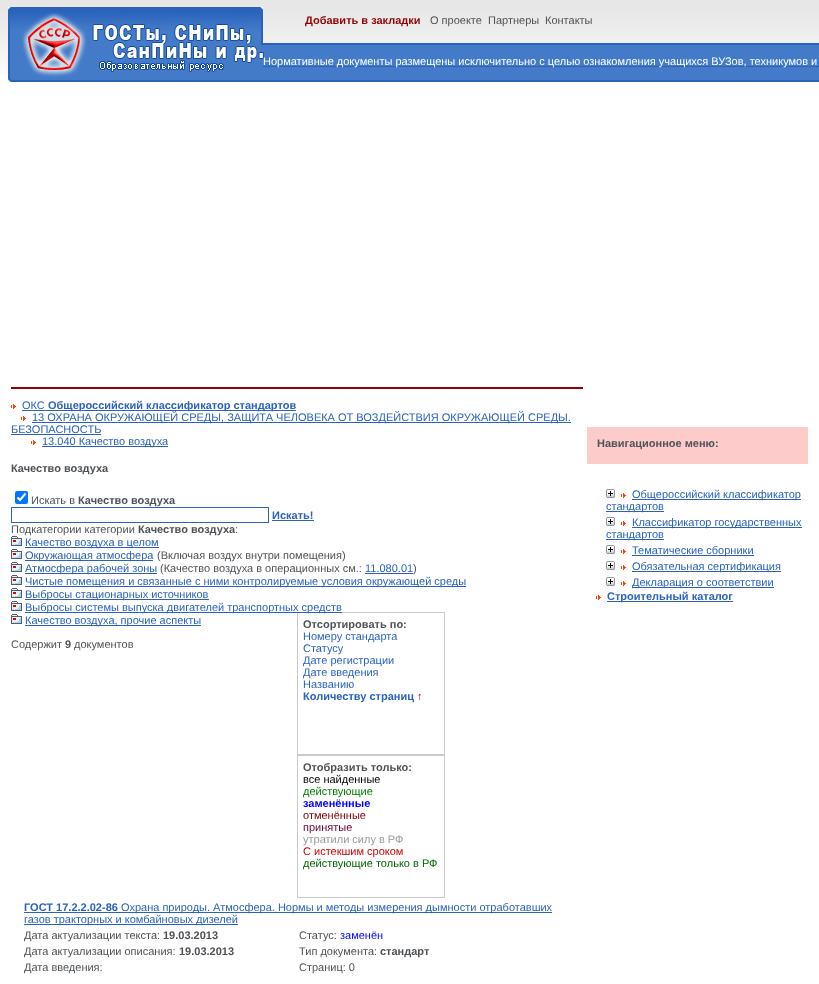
<svg xmlns="http://www.w3.org/2000/svg" width="819" height="984" viewBox="0 0 819 984">
  <rect width="100%" height="100%" fill="#ffffff"/>
  <image x="0" y="0" width="819" height="75" href="img1.png"/>
  <image x="8" y="7" width="811" height="75" href="img2.png"/>
  <text x="305" y="24" font-family="Liberation Sans" font-size="11" font-weight="bold" fill="#8f0303">Добавить в закладки</text>
  <text x="430" y="24" font-family="Liberation Sans" font-size="11" fill="#4e5256">О проекте</text>
  <text x="488" y="24" font-family="Liberation Sans" font-size="11" fill="#4e5256">Партнеры</text>
  <text x="545" y="24" font-family="Liberation Sans" font-size="11" fill="#4e5256">Контакты</text>
  <rect x="263" y="66" width="556" height="1" fill="#2a62bc"/>
  <text x="263" y="65" font-family="Liberation Sans" font-size="11" fill="#ffffff">Нормативные документы размещены исключительно с целью ознакомления учащихся ВУЗов, техникумов и</text>
  <rect x="11" y="387" width="572" height="2" fill="#8f0303"/>
  <image x="11" y="404" width="5" height="5" href="img3.png"/>
  <text x="22" y="409" font-family="Liberation Sans" font-size="11" fill="#2a62bc">ОКС</text>
  <rect x="22" y="410" width="274" height="1" fill="#2a62bc"/>
  <text x="48" y="409" font-family="Liberation Sans" font-size="11" font-weight="bold" fill="#2a62bc">Общероссийский классификатор стандартов</text>
  <image x="21" y="416" width="5" height="5" href="img3.png"/>
  <rect x="32" y="422" width="539" height="1" fill="#2a62bc"/>
  <text x="32" y="421" font-family="Liberation Sans" font-size="11" fill="#2a62bc">13 ОХРАНА ОКРУЖАЮЩЕЙ СРЕДЫ, ЗАЩИТА ЧЕЛОВЕКА ОТ ВОЗДЕЙСТВИЯ ОКРУЖАЮЩЕЙ СРЕДЫ.</text>
  <text x="11" y="433" font-family="Liberation Sans" font-size="11" fill="#2a62bc">БЕЗОПАСНОСТЬ</text>
  <rect x="11" y="434" width="90" height="1" fill="#2a62bc"/>
  <image x="31" y="440" width="5" height="5" href="img3.png"/>
  <rect x="42" y="446" width="126" height="1" fill="#2a62bc"/>
  <text x="42" y="445" font-family="Liberation Sans" font-size="11" fill="#2a62bc">13.040 Качество воздуха</text>
  <text x="11" y="472" font-family="Liberation Sans" font-size="11" font-weight="bold" fill="#4e5256">Качество воздуха</text>
  <rect x="15" y="491" width="13" height="13" rx="2" fill="#0075ff"/>
  <path d="M17.5 497.5L20 500L25.5 493.5" fill="none" stroke="#ffffff" stroke-width="2.1"/>
  <text x="31" y="504" font-family="Liberation Sans" font-size="11" fill="#4e5256">Искать в</text>
  <text x="78" y="504" font-family="Liberation Sans" font-size="11" font-weight="bold" fill="#4e5256">Качество воздуха</text>
  <rect x="11.5" y="507.5" width="257" height="15" fill="none" stroke="#2a62bc"/>
  <text x="272" y="519" font-family="Liberation Sans" font-size="11" font-weight="bold" fill="#2a62bc">Искать!</text>
  <rect x="272" y="520" width="42" height="1" fill="#2a62bc"/>
  <text x="11" y="533" font-family="Liberation Sans" font-size="11" fill="#4e5256">Подкатегории категории</text>
  <text x="138" y="533" font-family="Liberation Sans" font-size="11" font-weight="bold" fill="#4e5256">Качество воздуха</text>
  <text x="235" y="533" font-family="Liberation Sans" font-size="11" fill="#4e5256">:</text>
  <image x="11" y="536" width="11" height="10" href="img4.png"/>
  <rect x="25" y="547" width="134" height="1" fill="#2a62bc"/>
  <text x="25" y="546" font-family="Liberation Sans" font-size="11" fill="#2a62bc">Качество воздуха в целом</text>
  <image x="11" y="549" width="11" height="10" href="img4.png"/>
  <rect x="25" y="560" width="128" height="1" fill="#2a62bc"/>
  <text x="25" y="559" font-family="Liberation Sans" font-size="11" fill="#2a62bc">Окружающая атмосфера</text>
  <text x="157" y="559" font-family="Liberation Sans" font-size="11" fill="#4e5256">(Включая воздух внутри помещения)</text>
  <image x="11" y="562" width="11" height="10" href="img4.png"/>
  <rect x="25" y="573" width="132" height="1" fill="#2a62bc"/>
  <text x="25" y="572" font-family="Liberation Sans" font-size="11" fill="#2a62bc">Атмосфера рабочей зоны</text>
  <text x="160" y="572" font-family="Liberation Sans" font-size="11" fill="#4e5256">(Качество воздуха в операционных см.:</text>
  <text x="365" y="572" font-family="Liberation Sans" font-size="11" fill="#2a62bc">11.080.01</text>
  <rect x="365" y="573" width="48" height="1" fill="#2a62bc"/>
  <text x="413" y="572" font-family="Liberation Sans" font-size="11" fill="#4e5256">)</text>
  <image x="11" y="575" width="11" height="10" href="img4.png"/>
  <rect x="25" y="586" width="441" height="1" fill="#2a62bc"/>
  <text x="25" y="585" font-family="Liberation Sans" font-size="11" fill="#2a62bc">Чистые помещения и связанные с ними контролируемые условия окружающей среды</text>
  <image x="11" y="588" width="11" height="10" href="img4.png"/>
  <rect x="25" y="599" width="184" height="1" fill="#2a62bc"/>
  <text x="25" y="598" font-family="Liberation Sans" font-size="11" fill="#2a62bc">Выбросы стационарных источников</text>
  <image x="11" y="601" width="11" height="10" href="img4.png"/>
  <rect x="297.5" y="612.5" width="147" height="142" fill="none" stroke="#cacaca"/>
  <rect x="25" y="612" width="317" height="1" fill="#2a62bc"/>
  <text x="25" y="611" font-family="Liberation Sans" font-size="11" fill="#2a62bc">Выбросы системы выпуска двигателей транспортных средств</text>
  <image x="11" y="614" width="11" height="10" href="img4.png"/>
  <rect x="25" y="625" width="176" height="1" fill="#2a62bc"/>
  <text x="25" y="624" font-family="Liberation Sans" font-size="11" fill="#2a62bc">Качество воздуха, прочие аспекты</text>
  <text x="303" y="628" font-family="Liberation Sans" font-size="11" font-weight="bold" fill="#4e5256">Отсортировать по:</text>
  <text x="303" y="640" font-family="Liberation Sans" font-size="11" fill="#2a62bc">Номеру стандарта</text>
  <text x="303" y="652" font-family="Liberation Sans" font-size="11" fill="#2a62bc">Статусу</text>
  <text x="303" y="664" font-family="Liberation Sans" font-size="11" fill="#2a62bc">Дате регистрации</text>
  <text x="303" y="676" font-family="Liberation Sans" font-size="11" fill="#2a62bc">Дате введения</text>
  <text x="303" y="688" font-family="Liberation Sans" font-size="11" fill="#2a62bc">Названию</text>
  <text x="303" y="700" font-family="Liberation Sans" font-size="11" font-weight="bold" fill="#2a62bc">Количеству страниц</text>
  <text x="417" y="700" font-family="Liberation Sans" font-size="11" fill="#8f0303">↑</text>
  <rect x="297.5" y="755.5" width="147" height="142" fill="none" stroke="#cacaca"/>
  <text x="303" y="771" font-family="Liberation Sans" font-size="11" font-weight="bold" fill="#4e5256">Отобразить только:</text>
  <text x="303" y="783" font-family="Liberation Sans" font-size="11" fill="#000000">все найденные</text>
  <text x="303" y="795" font-family="Liberation Sans" font-size="11" fill="#008000">действующие</text>
  <text x="303" y="807" font-family="Liberation Sans" font-size="11" font-weight="bold" fill="#0000ff">заменённые</text>
  <text x="303" y="819" font-family="Liberation Sans" font-size="11" fill="#800000">отменённые</text>
  <text x="303" y="831" font-family="Liberation Sans" font-size="11" fill="#660033">принятые</text>
  <text x="303" y="843" font-family="Liberation Sans" font-size="11" fill="#999999">утратили силу в РФ</text>
  <text x="303" y="855" font-family="Liberation Sans" font-size="11" fill="#cc0000">С истекшим сроком</text>
  <text x="303" y="867" font-family="Liberation Sans" font-size="11" fill="#006600">действующие только в РФ</text>
  <text x="11" y="648" font-family="Liberation Sans" font-size="11" fill="#4e5256">Содержит</text>
  <text x="65" y="648" font-family="Liberation Sans" font-size="11" font-weight="bold" fill="#4e5256">9</text>
  <text x="74" y="648" font-family="Liberation Sans" font-size="11" fill="#4e5256">документов</text>
  <text x="24" y="911" font-family="Liberation Sans" font-size="11" font-weight="bold" fill="#2a62bc">ГОСТ 17.2.2.02-86</text>
  <rect x="24" y="912" width="528" height="1" fill="#2a62bc"/>
  <text x="121" y="911" font-family="Liberation Sans" font-size="11" fill="#2a62bc">Охрана природы. Атмосфера. Нормы и методы измерения дымности отработавших</text>
  <rect x="24" y="924" width="214" height="1" fill="#2a62bc"/>
  <text x="24" y="923" font-family="Liberation Sans" font-size="11" fill="#2a62bc">газов тракторных и комбайновых дизелей</text>
  <text x="24" y="939" font-family="Liberation Sans" font-size="11" fill="#4e5256">Дата актуализации текста:</text>
  <text x="163" y="939" font-family="Liberation Sans" font-size="11" font-weight="bold" fill="#4e5256">19.03.2013</text>
  <text x="299" y="939" font-family="Liberation Sans" font-size="11" fill="#4e5256">Статус:</text>
  <text x="340" y="939" font-family="Liberation Sans" font-size="11" fill="#0000ff">заменён</text>
  <text x="24" y="955" font-family="Liberation Sans" font-size="11" fill="#4e5256">Дата актуализации описания:</text>
  <text x="179" y="955" font-family="Liberation Sans" font-size="11" font-weight="bold" fill="#4e5256">19.03.2013</text>
  <text x="299" y="955" font-family="Liberation Sans" font-size="11" fill="#4e5256">Тип документа:</text>
  <text x="380" y="955" font-family="Liberation Sans" font-size="11" font-weight="bold" fill="#4e5256">стандарт</text>
  <text x="24" y="971" font-family="Liberation Sans" font-size="11" fill="#4e5256">Дата введения:</text>
  <text x="299" y="971" font-family="Liberation Sans" font-size="11" fill="#4e5256">Страниц: 0</text>
  <rect x="587" y="427" width="221" height="37" fill="#fecbcb"/>
  <text x="597" y="447" font-family="Liberation Sans" font-size="11" font-weight="bold" fill="#4e5256">Навигационное меню:</text>
  <image x="606" y="489" width="9" height="9" href="img5.png"/>
  <image x="621" y="493" width="5" height="5" href="img3.png"/>
  <rect x="632" y="499" width="169" height="1" fill="#2a62bc"/>
  <text x="632" y="498" font-family="Liberation Sans" font-size="11" fill="#2a62bc">Общероссийский классификатор</text>
  <rect x="606" y="511" width="58" height="1" fill="#2a62bc"/>
  <text x="606" y="510" font-family="Liberation Sans" font-size="11" fill="#2a62bc">стандартов</text>
  <image x="606" y="517" width="9" height="9" href="img5.png"/>
  <image x="621" y="521" width="5" height="5" href="img3.png"/>
  <rect x="632" y="527" width="170" height="1" fill="#2a62bc"/>
  <text x="632" y="526" font-family="Liberation Sans" font-size="11" fill="#2a62bc">Классификатор государственных</text>
  <rect x="606" y="539" width="58" height="1" fill="#2a62bc"/>
  <text x="606" y="538" font-family="Liberation Sans" font-size="11" fill="#2a62bc">стандартов</text>
  <image x="606" y="545" width="9" height="9" href="img5.png"/>
  <image x="621" y="549" width="5" height="5" href="img3.png"/>
  <rect x="632" y="555" width="122" height="1" fill="#2a62bc"/>
  <text x="632" y="554" font-family="Liberation Sans" font-size="11" fill="#2a62bc">Тематические сборники</text>
  <image x="606" y="561" width="9" height="9" href="img5.png"/>
  <image x="621" y="565" width="5" height="5" href="img3.png"/>
  <rect x="632" y="571" width="149" height="1" fill="#2a62bc"/>
  <text x="632" y="570" font-family="Liberation Sans" font-size="11" fill="#2a62bc">Обязательная сертификация</text>
  <image x="606" y="577" width="9" height="9" href="img5.png"/>
  <image x="621" y="581" width="5" height="5" href="img3.png"/>
  <rect x="632" y="587" width="142" height="1" fill="#2a62bc"/>
  <text x="632" y="586" font-family="Liberation Sans" font-size="11" fill="#2a62bc">Декларация о соответствии</text>
  <image x="596" y="595" width="5" height="5" href="img3.png"/>
  <rect x="607" y="601" width="126" height="1" fill="#2a62bc"/>
  <text x="607" y="600" font-family="Liberation Sans" font-size="11" font-weight="bold" fill="#2a62bc">Строительный каталог</text>
</svg>
